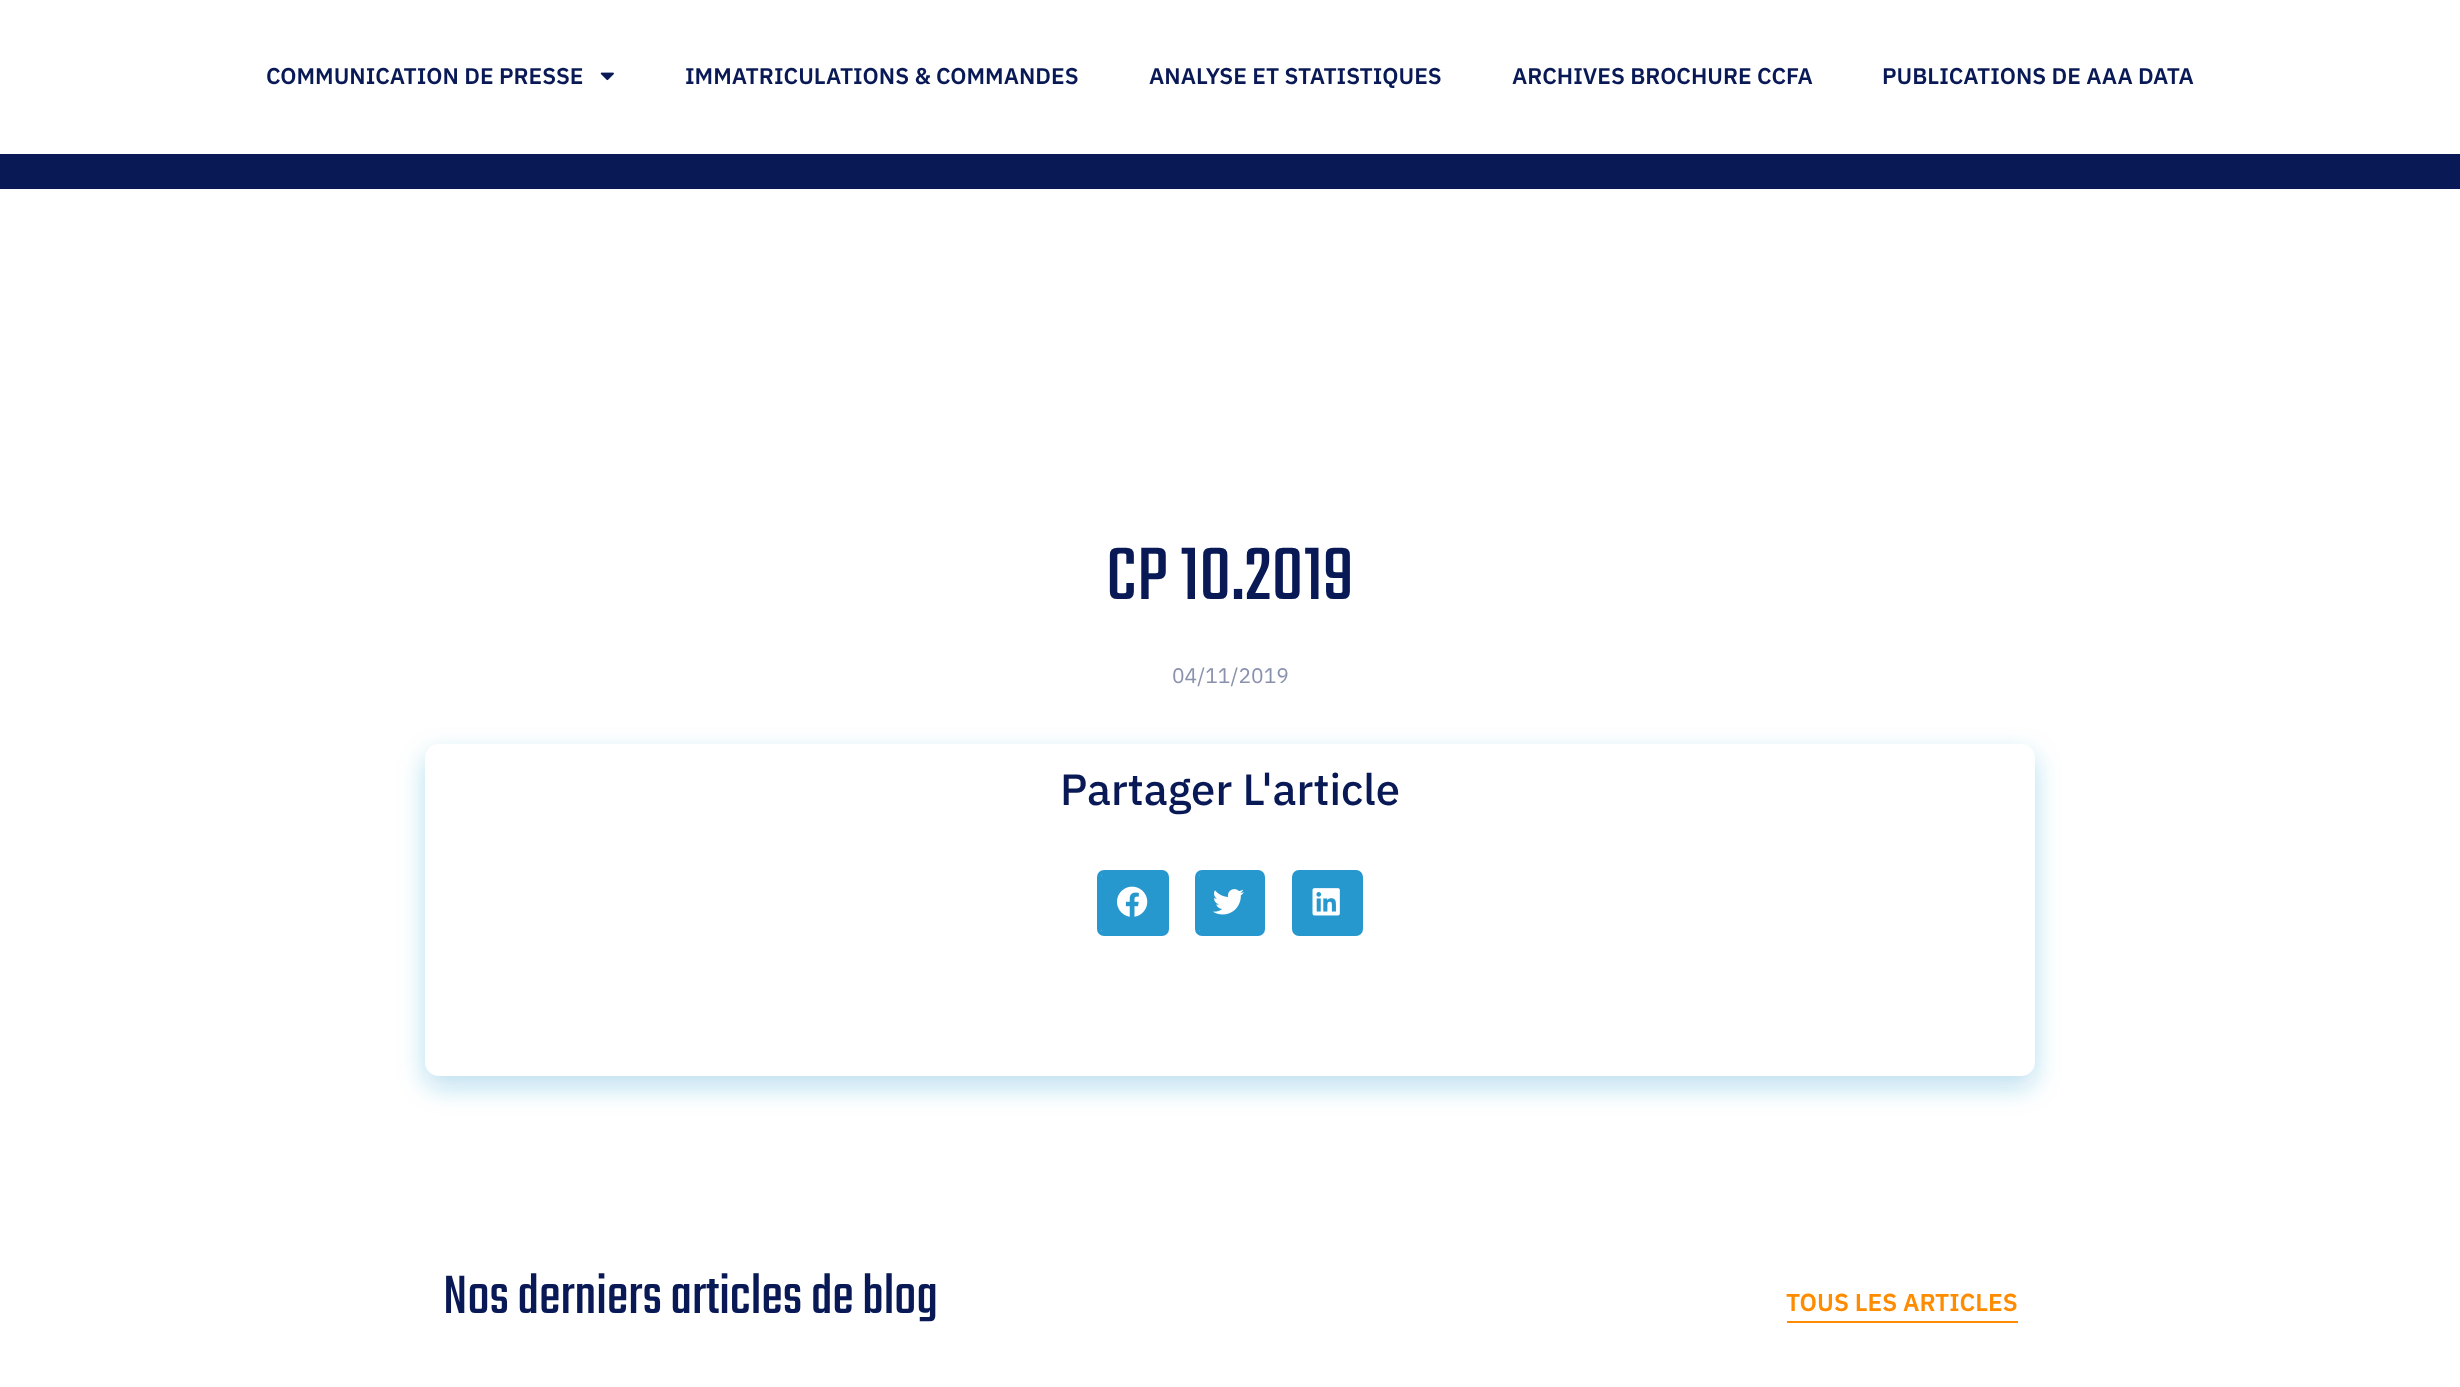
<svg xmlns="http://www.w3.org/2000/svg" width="2460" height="1387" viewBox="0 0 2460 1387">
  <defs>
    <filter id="blur1" x="-50%" y="-200%" width="200%" height="500%"><feGaussianBlur stdDeviation="13"/></filter>
  </defs>
  <rect width="100%" height="100%" fill="#ffffff"/>
  <text x="266" y="84" font-family="IBM Plex Sans" font-size="22.75" font-weight="600" fill="#091955">COMMUNICATION DE PRESSE</text>
  <image x="600" y="72" width="14" height="9" href="img1.png"/>
  <text x="685" y="84" font-family="IBM Plex Sans" font-size="22.75" font-weight="600" fill="#091955">IMMATRICULATIONS &amp; COMMANDES</text>
  <text x="1149" y="84" font-family="IBM Plex Sans" font-size="22.75" font-weight="600" fill="#091955">ANALYSE ET STATISTIQUES</text>
  <text x="1512" y="84" font-family="IBM Plex Sans" font-size="22.75" font-weight="600" fill="#091955">ARCHIVES BROCHURE CCFA</text>
  <text x="1882" y="84" font-family="IBM Plex Sans" font-size="22.75" font-weight="600" fill="#091955">PUBLICATIONS DE AAA DATA</text>
  <rect x="0" y="154" width="2460" height="35" fill="#091955"/>
  <text x="1106" y="599" font-family="Teko" font-size="82" fill="#091955">CP 10.2019</text>
  <text x="1172" y="683" font-family="IBM Plex Sans" font-size="21" fill="#8991ad">04/11/2019</text>
  <rect x="425" y="754" width="1610" height="333" rx="14" fill="#2698ce" fill-opacity="0.3" filter="url(#blur1)"/>
  <rect x="425" y="744" width="1610" height="332" rx="14" fill="#ffffff"/>
  <text x="1060" y="805" font-family="IBM Plex Sans" font-size="43.75" font-weight="500" fill="#091955">Partager L'article</text>
  <rect x="1099" y="872" width="68" height="62" rx="5" fill="none" stroke="#2698ce" stroke-width="4"/>
  <rect x="1101" y="873" width="65" height="60" rx="4" fill="#2698ce"/>
  <image x="1117" y="886" width="31" height="31" href="img2.png"/>
  <rect x="1197" y="872" width="66" height="62" rx="5" fill="none" stroke="#2698ce" stroke-width="4"/>
  <rect x="1199" y="873" width="63" height="60" rx="4" fill="#2698ce"/>
  <image x="1213" y="889" width="31" height="26" href="img3.png"/>
  <rect x="1294" y="872" width="67" height="62" rx="5" fill="none" stroke="#2698ce" stroke-width="4"/>
  <rect x="1295" y="873" width="65" height="60" rx="4" fill="#2698ce"/>
  <image x="1312" y="888" width="28" height="28" href="img4.png"/>
  <text x="443" y="1313" font-family="Teko" font-size="59.5" fill="#091955">Nos derniers articles de blog</text>
  <rect x="1787" y="1321" width="231" height="2" fill="#ff8c00"/>
  <text x="1786" y="1311" font-family="IBM Plex Sans" font-size="24.5" font-weight="600" fill="#ff8c00">TOUS LES ARTICLES</text>
</svg>
